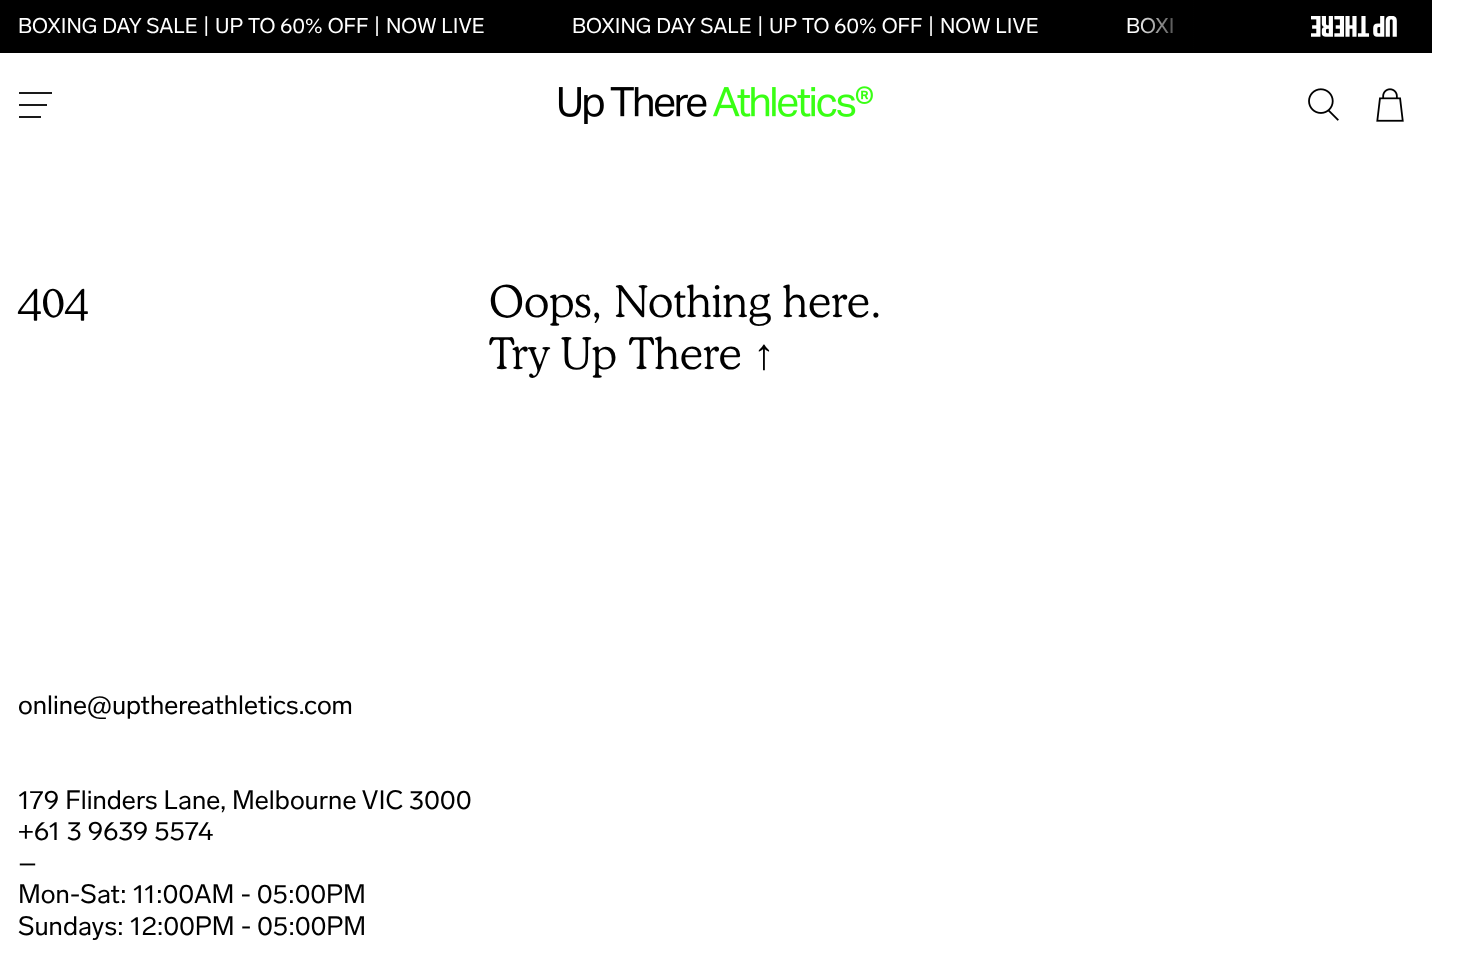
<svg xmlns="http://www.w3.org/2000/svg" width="1457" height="977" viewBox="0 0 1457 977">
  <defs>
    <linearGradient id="g1" gradientUnits="userSpaceOnUse" x1="1432" y1="26" x2="1134" y2="26"><stop offset="0" stop-color="#000000"/><stop offset="0.8" stop-color="#000000"/><stop offset="1" stop-color="#000000" stop-opacity="0"/></linearGradient>
  </defs>
  <rect width="100%" height="100%" fill="#ffffff"/>
  <rect x="0" y="0" width="1193" height="53" fill="#000000"/>
  <text x="18" y="33" font-family="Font" font-size="21" fill="#ffffff">BOXING DAY SALE | UP TO 60% OFF | NOW LIVE</text>
  <text x="572" y="33" font-family="Font" font-size="21" fill="#ffffff">BOXING DAY SALE | UP TO 60% OFF | NOW LIVE</text>
  <text x="1126" y="33" font-family="Font" font-size="21" fill="#ffffff">BOXI</text>
  <rect x="1135" y="0" width="297" height="53" fill="url(#g1)"/>
  <image x="1311" y="16" width="86" height="21" href="img1.png"/>
  <rect x="19" y="92" width="33" height="2" fill="#1a1a1a"/>
  <rect x="19" y="104" width="28" height="2" fill="#1a1a1a"/>
  <rect x="19" y="116" width="22" height="2" fill="#1a1a1a"/>
  <image x="558" y="86" width="315" height="38" href="img2.png"/>
  <image x="1308" y="88" width="31" height="33" href="img3.png"/>
  <image x="1376" y="88" width="28" height="34" href="img4.png"/>
  <text x="18" y="317" font-family="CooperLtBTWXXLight" font-size="43.75" font-weight="300" fill="#000000">404</text>
  <text x="489" y="317" font-family="CooperLtBTWXXLight" font-size="43.75" font-weight="300" fill="#000000">Oops, Nothing here.</text>
  <text x="489" y="369" font-family="CooperLtBTWXXLight" font-size="43.75" font-weight="300" fill="#000000">Try Up There</text>
  <text x="753" y="369" font-family="Liberation Sans" font-size="43.75" fill="#000000">↑</text>
  <text x="18" y="714" font-family="Font" font-size="26.25" fill="#000000">online@upthereathletics.com</text>
  <text x="18" y="809" font-family="Font" font-size="26.25" fill="#000000">179 Flinders Lane, Melbourne VIC 3000</text>
  <text x="18" y="840" font-family="Font" font-size="26.25" fill="#000000">+61 3 9639 5574</text>
  <text x="18" y="872" font-family="Font" font-size="26.25" fill="#000000">–</text>
  <text x="18" y="903" font-family="Font" font-size="26.25" fill="#000000">Mon-Sat: 11:00AM - 05:00PM</text>
  <text x="18" y="935" font-family="Font" font-size="26.25" fill="#000000">Sundays: 12:00PM - 05:00PM</text>
</svg>
